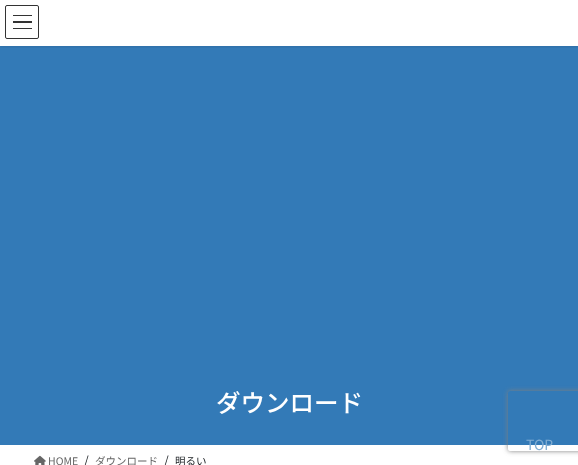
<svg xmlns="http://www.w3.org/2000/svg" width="578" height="465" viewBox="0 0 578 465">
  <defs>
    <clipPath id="clip1"><rect x="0" y="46" width="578" height="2"/></clipPath>
    <filter id="blur1" x="-50%" y="-200%" width="200%" height="500%"><feGaussianBlur stdDeviation="1.5"/></filter>
    <clipPath id="clip2"><path d="M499 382H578V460H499ZM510 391H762C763 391 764 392 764 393V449C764 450 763 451 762 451H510C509 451 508 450 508 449V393C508 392 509 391 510 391Z" clip-rule="evenodd"/></clipPath>
    <filter id="blur2" x="-50%" y="-200%" width="200%" height="500%"><feGaussianBlur stdDeviation="2.5"/></filter>
  </defs>
  <rect width="100%" height="100%" fill="#ffffff"/>
  <rect x="0" y="46" width="578" height="399" fill="#337ab7"/>
  <g clip-path="url(#clip1)">
    <rect x="0" y="1" width="578" height="46" fill="#000000" fill-opacity="0.1" filter="url(#blur1)"/>
  </g>
  <rect x="13" y="15" width="19" height="1" fill="#333333"/>
  <rect x="13" y="21" width="19" height="2" fill="#333333"/>
  <rect x="13" y="28" width="19" height="1" fill="#333333"/>
  <rect x="5.5" y="5.5" width="33" height="33" rx="1.5" fill="none" stroke="#333333"/>
  <text x="216" y="412" font-family="Noto Sans JP" font-size="24.5" font-weight="500" fill="#ffffff">ダウンロード</text>
  <g clip-path="url(#clip2)">
    <rect x="508" y="391" width="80" height="60" rx="2" fill="#808080" filter="url(#blur2)"/>
  </g>
  <text x="526" y="450" font-family="Noto Sans JP" font-size="14" fill="#81add3">TOP</text>
  <image x="34" y="455" width="12" height="10" href="img1.png"/>
  <text x="48" y="465" font-family="Noto Sans JP" font-size="10.5" fill="#666666">HOME</text>
  <text x="84" y="465" font-family="Noto Sans JP" font-size="12" fill="#212529">/</text>
  <text x="95" y="465" font-family="Noto Sans JP" font-size="10.5" fill="#666666">ダウンロード</text>
  <text x="164" y="465" font-family="Noto Sans JP" font-size="12" fill="#212529">/</text>
  <text x="175" y="465" font-family="Noto Sans JP" font-size="10.5" fill="#212529">明るい</text>
</svg>
